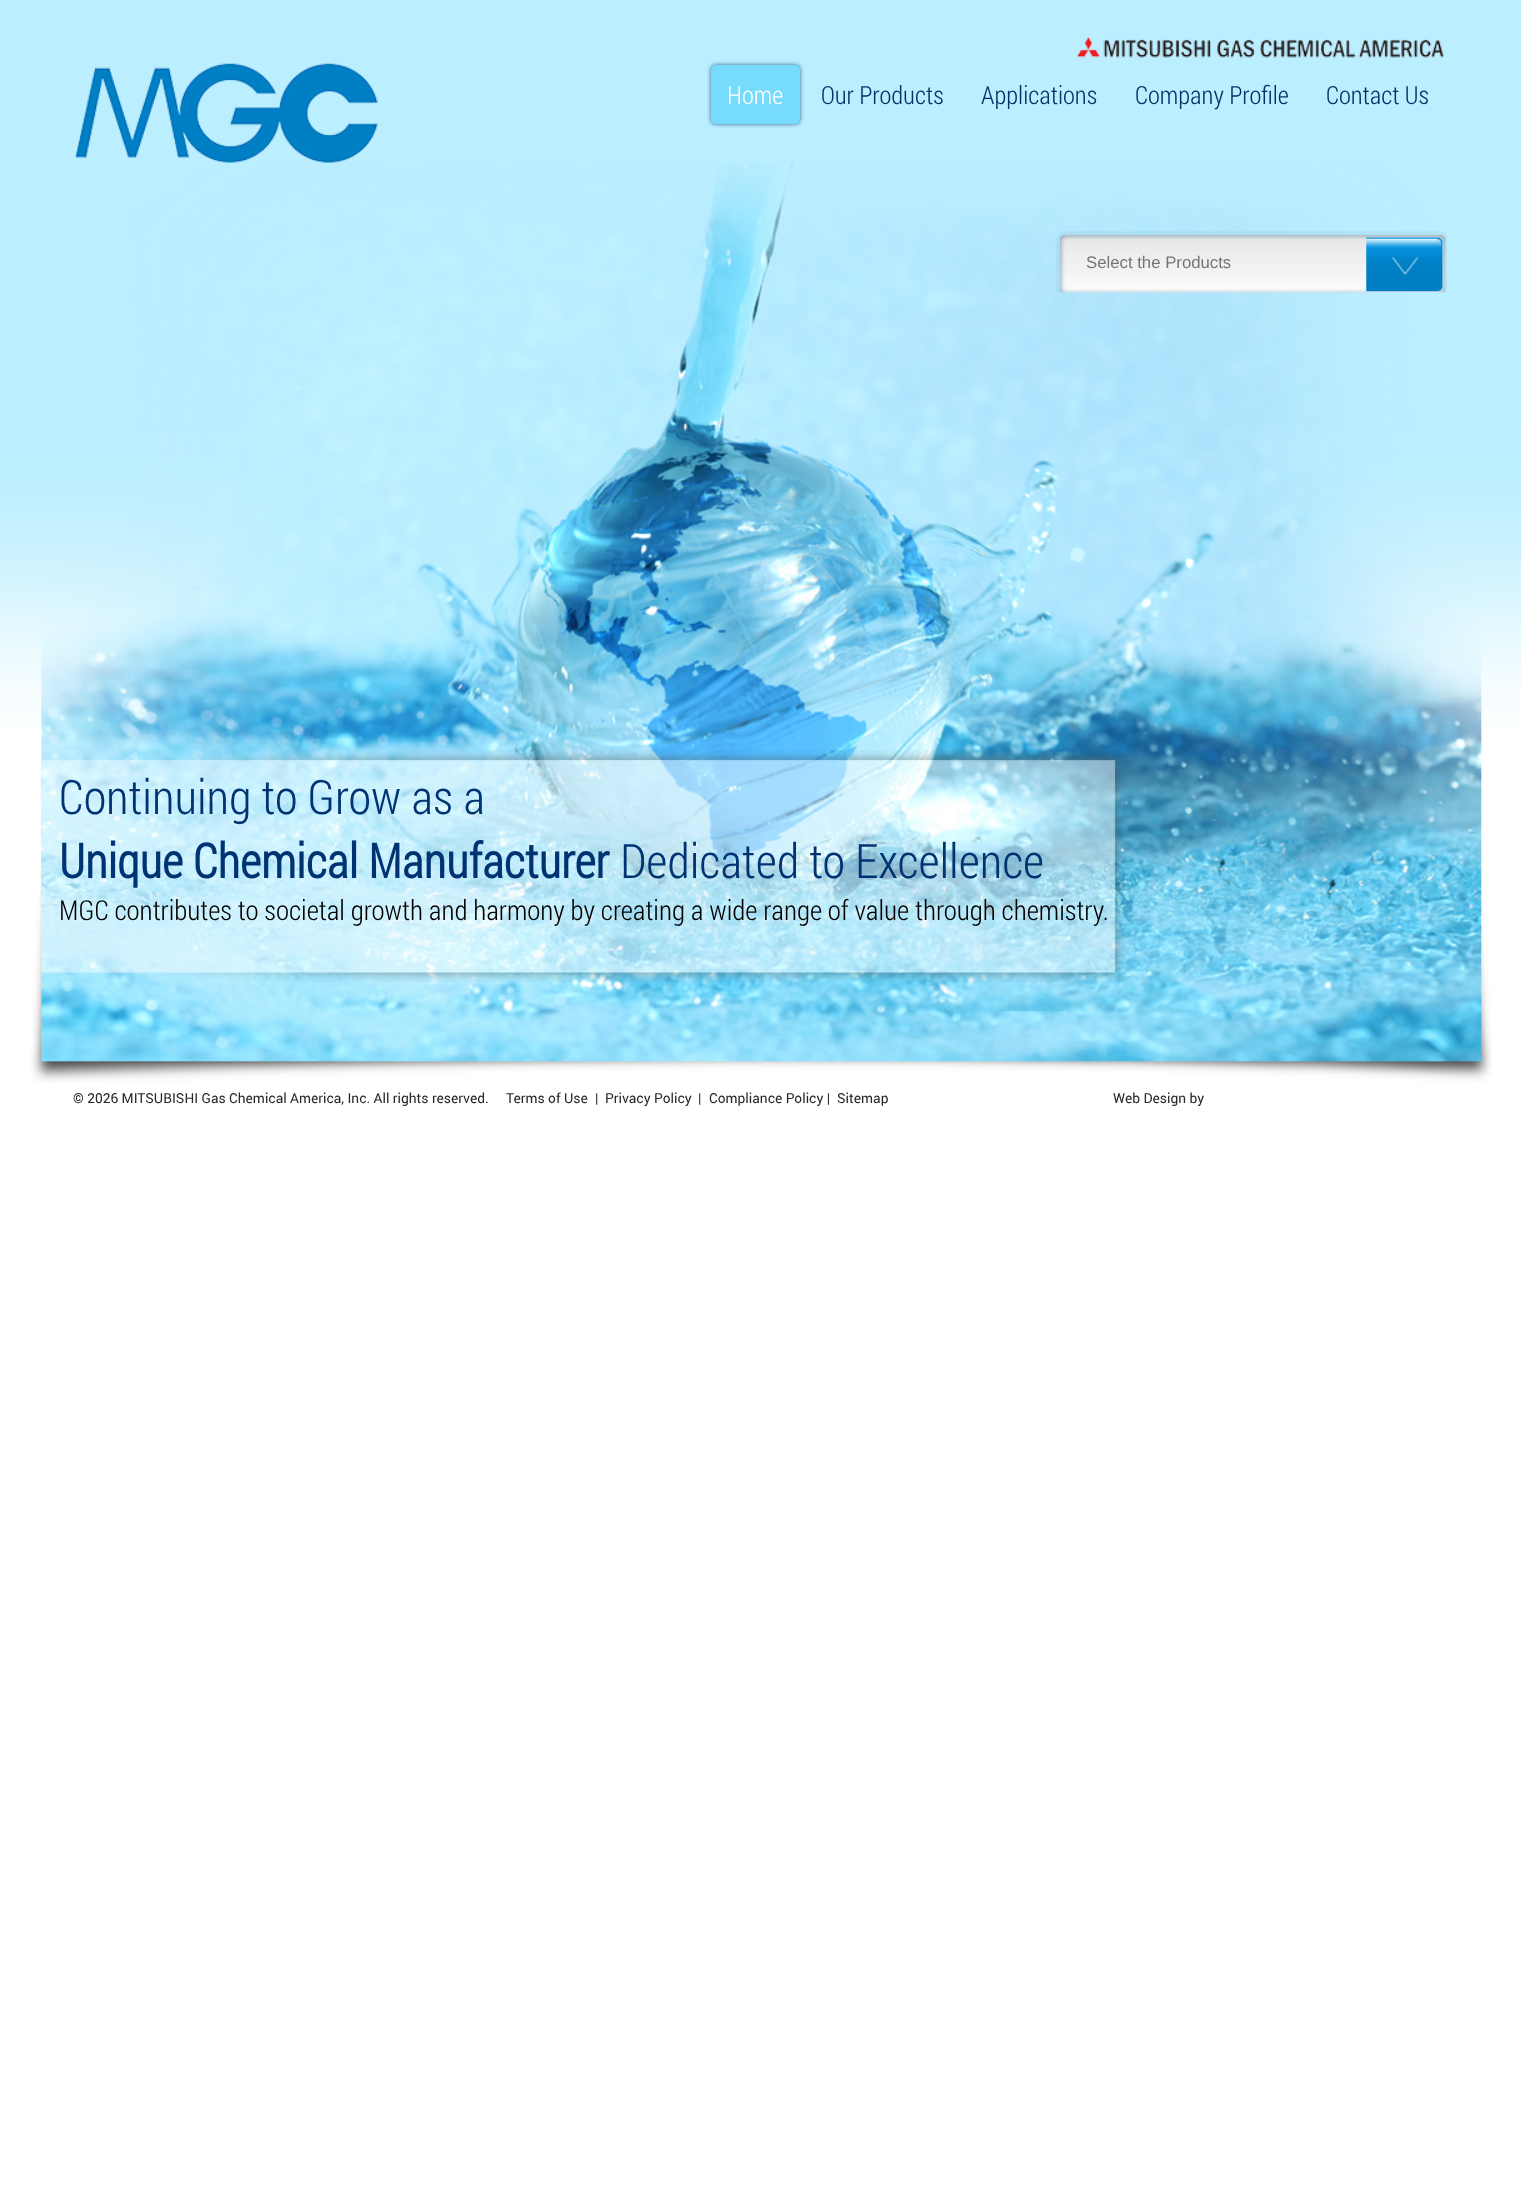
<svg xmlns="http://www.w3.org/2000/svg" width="1521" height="2208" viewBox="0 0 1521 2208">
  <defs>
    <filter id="blur1" x="-50%" y="-200%" width="200%" height="500%"><feGaussianBlur stdDeviation="2"/></filter>
  </defs>
  <rect width="100%" height="100%" fill="#ffffff"/>
  <image x="0" y="0" width="1521" height="730" href="img1.png"/>
  <image x="75" y="63" width="303" height="100" href="img2.png"/>
  <image x="1077" y="37" width="367" height="21" href="img3.png"/>
  <rect x="711" y="65" width="89" height="59" rx="5" fill="#003366" fill-opacity="0.74" filter="url(#blur1)"/>
  <rect x="711" y="65" width="89" height="59" rx="5" fill="#77dbfc"/>
  <text x="727" y="104" font-family="Roboto Condensed" font-size="25" font-weight="300" fill="#ffffff">Home</text>
  <text x="821" y="104" font-family="Roboto Condensed" font-size="25" font-weight="300" fill="#003366">Our Products</text>
  <text x="981" y="104" font-family="Roboto Condensed" font-size="25" font-weight="300" fill="#003366">Applications</text>
  <text x="1135" y="104" font-family="Roboto Condensed" font-size="25" font-weight="300" fill="#003366">Company Profile</text>
  <text x="1326" y="104" font-family="Roboto Condensed" font-size="25" font-weight="300" fill="#003366">Contact Us</text>
  <image x="31" y="162" width="1461" height="921" href="img4.png"/>
  <image x="1056" y="231" width="391" height="62" href="img5.png"/>
  <text x="1086" y="268" font-family="Liberation Sans" font-size="16.75" fill="#757575">Select the Products</text>
  <image x="1366" y="237" width="77" height="55" href="img6.png"/>
  <image x="40" y="750" width="1085" height="232" href="img7.png"/>
  <text x="59" y="814" font-family="Roboto Condensed" font-size="47.5" font-weight="300" fill="#003372">Continuing to Grow as a</text>
  <text x="59" y="878" font-family="Roboto Condensed" font-size="47.5" font-weight="bold" fill="#003372">Unique Chemical Manufacturer</text>
  <text x="620" y="878" font-family="Roboto Condensed" font-size="47.5" font-weight="300" fill="#003372">Dedicated to Excellence</text>
  <text x="59" y="920" font-family="Roboto Condensed" font-size="27.5" font-weight="300" fill="#000000">MGC contributes to societal growth and harmony by creating a wide range of value through chemistry.</text>
  <text x="73" y="1103" font-family="roboto" font-size="13.75" fill="#272828">© 2026 MITSUBISHI Gas Chemical America, Inc. All rights reserved.</text>
  <text x="506" y="1103" font-family="roboto" font-size="13.75" fill="#272828">Terms of Use</text>
  <text x="595" y="1103" font-family="roboto" font-size="13.75" fill="#272828">|</text>
  <text x="605" y="1103" font-family="roboto" font-size="13.75" fill="#272828">Privacy Policy</text>
  <text x="698" y="1103" font-family="roboto" font-size="13.75" fill="#272828">|</text>
  <text x="709" y="1103" font-family="roboto" font-size="13.75" fill="#272828">Compliance Policy |</text>
  <text x="837" y="1103" font-family="roboto" font-size="13.75" fill="#272828">Sitemap</text>
  <text x="1113" y="1103" font-family="roboto" font-size="13.75" fill="#272828">Web Design by</text>
</svg>
